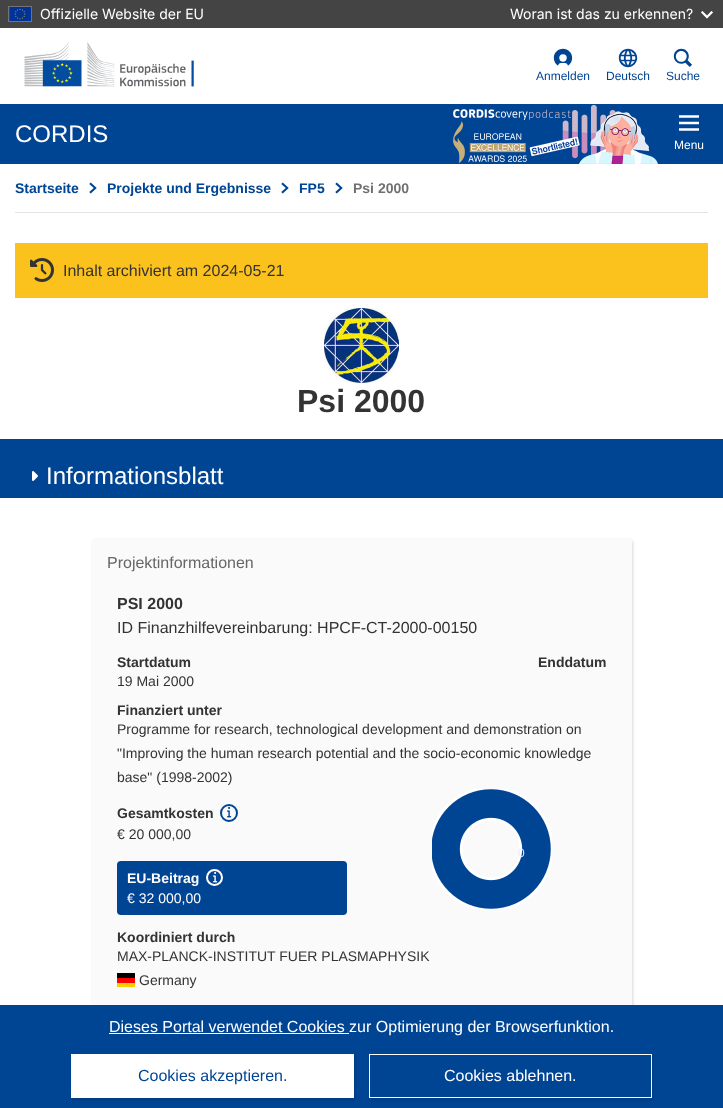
<svg xmlns="http://www.w3.org/2000/svg" width="723" height="1108" viewBox="0 0 723 1108">
  <defs>
    <filter id="blur1" x="-50%" y="-200%" width="200%" height="500%"><feGaussianBlur stdDeviation="1.5"/></filter>
    <clipPath id="clip1"><path d="M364 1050H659V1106H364ZM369 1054H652V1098H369Z" clip-rule="evenodd"/></clipPath>
  </defs>
  <rect width="100%" height="100%" fill="#ffffff"/>
  <rect x="0" y="0" width="723" height="28" fill="#444444"/>
  <rect x="8.5" y="6.5" width="23" height="15" fill="none" stroke="#737373"/>
  <image x="10" y="7" width="21" height="14" href="img1.png"/>
  <text x="40" y="19" font-family="Inter" font-size="14" fill="#ffffff">Offizielle Website der EU</text>
  <text x="510" y="19" font-family="Inter" font-size="14" fill="#ffffff">Woran ist das zu erkennen?</text>
  <image x="701" y="11" width="12" height="8" href="img2.png"/>
  <image x="24" y="42" width="170" height="45" href="img3.png"/>
  <image x="553" y="48" width="20" height="18" href="img4.png"/>
  <text x="536" y="80" font-family="Liberation Sans" font-size="12" fill="#004494">Anmelden</text>
  <image x="618" y="48" width="20" height="20" href="img5.png"/>
  <text x="606" y="80" font-family="Liberation Sans" font-size="12" fill="#004494">Deutsch</text>
  <image x="673" y="48" width="19" height="19" href="img6.png"/>
  <text x="666" y="80" font-family="Liberation Sans" font-size="12" fill="#004494">Suche</text>
  <rect x="0" y="104" width="723" height="60" fill="#004494"/>
  <text x="15" y="142" font-family="Liberation Sans" font-size="24" fill="#ffffff">CORDIS</text>
  <image x="453" y="105" width="205" height="59" href="img7.png"/>
  <image x="679" y="115" width="20" height="16" href="img8.png"/>
  <text x="674" y="149" font-family="Liberation Sans" font-size="12" fill="#ffffff">Menu</text>
  <rect x="15" y="212" width="693" height="1" fill="#e3e3e3"/>
  <text x="15" y="193" font-family="Liberation Sans" font-size="14" font-weight="bold" fill="#004494">Startseite</text>
  <image x="89" y="182" width="8" height="12" href="img9.png"/>
  <text x="107" y="193" font-family="Liberation Sans" font-size="14" font-weight="bold" fill="#004494">Projekte und Ergebnisse</text>
  <image x="281" y="182" width="8" height="12" href="img9.png"/>
  <text x="299" y="193" font-family="Liberation Sans" font-size="14" font-weight="bold" fill="#004494">FP5</text>
  <image x="335" y="182" width="8" height="12" href="img9.png"/>
  <text x="353" y="193" font-family="Liberation Sans" font-size="14" font-weight="bold" fill="#707070">Psi 2000</text>
  <rect x="15" y="243" width="693" height="55" fill="#fbc11d"/>
  <image x="30" y="258" width="24" height="24" href="img10.png"/>
  <text x="63" y="276" font-family="Liberation Sans" font-size="16" fill="#333333">Inhalt archiviert am 2024-05-21</text>
  <image x="324" y="308" width="75" height="75" href="img11.png"/>
  <text x="297" y="412" font-family="Liberation Sans" font-size="32" font-weight="bold" fill="#333333">Psi 2000</text>
  <rect x="0" y="439" width="723" height="59" fill="#004494"/>
  <image x="32" y="471" width="6" height="10" href="img12.png"/>
  <text x="46" y="484" font-family="Liberation Sans" font-size="24" fill="#ffffff">Informationsblatt</text>
  <rect x="93" y="540" width="540" height="493" rx="4" fill="#000000" fill-opacity="0.15" filter="url(#blur1)"/>
  <rect x="92" y="538" width="540" height="493" rx="4" fill="#fafafa"/>
  <text x="107" y="568" font-family="Liberation Sans" font-size="16" fill="#666666">Projektinformationen</text>
  <text x="117" y="609" font-family="Liberation Sans" font-size="16" font-weight="bold" fill="#333333">PSI 2000</text>
  <text x="117" y="633" font-family="Liberation Sans" font-size="16" fill="#333333">ID Finanzhilfevereinbarung: HPCF-CT-2000-00150</text>
  <text x="117" y="667" font-family="Liberation Sans" font-size="14" font-weight="bold" fill="#333333">Startdatum</text>
  <text x="117" y="686" font-family="Liberation Sans" font-size="14" fill="#333333">19 Mai 2000</text>
  <text x="538" y="667" font-family="Liberation Sans" font-size="14" font-weight="bold" fill="#333333">Enddatum</text>
  <text x="117" y="715" font-family="Liberation Sans" font-size="14" font-weight="bold" fill="#333333">Finanziert unter</text>
  <text x="117" y="734" font-family="Liberation Sans" font-size="14" fill="#333333">Programme for research, technological development and demonstration on</text>
  <text x="117" y="758" font-family="Liberation Sans" font-size="14" fill="#333333">"Improving the human research potential and the socio-economic knowledge</text>
  <text x="117" y="782" font-family="Liberation Sans" font-size="14" fill="#333333">base" (1998-2002)</text>
  <text x="117" y="818" font-family="Liberation Sans" font-size="14" font-weight="bold" fill="#333333">Gesamtkosten</text>
  <circle cx="229" cy="813" r="8" fill="none" stroke="#004494" stroke-width="2"/>
  <image x="227" y="806" width="5" height="12" href="img13.png"/>
  <text x="117" y="839" font-family="Liberation Sans" font-size="14" fill="#333333">€ 20 000,00</text>
  <rect x="117" y="861" width="230" height="54" rx="4" fill="#004494"/>
  <text x="127" y="883" font-family="Liberation Sans" font-size="14" font-weight="bold" fill="#ffffff">EU-Beitrag</text>
  <circle cx="214.5" cy="877.5" r="7.5" fill="none" stroke="#ffffff" stroke-width="2"/>
  <image x="213" y="871" width="5" height="12" href="img14.png"/>
  <text x="127" y="903" font-family="Liberation Sans" font-size="14" fill="#ffffff">€ 32 000,00</text>
  <image x="432" y="789" width="120" height="120" href="img15.png"/>
  <text x="518" y="857" font-family="Liberation Sans" font-size="12" fill="#e9eef3">0</text>
  <text x="117" y="942" font-family="Liberation Sans" font-size="14" font-weight="bold" fill="#333333">Koordiniert durch</text>
  <text x="117" y="961" font-family="Liberation Sans" font-size="14" fill="#333333">MAX-PLANCK-INSTITUT FUER PLASMAPHYSIK</text>
  <rect x="117" y="983" width="18" height="4" fill="#ffcc00"/>
  <rect x="117" y="973" width="18" height="5" fill="#000001"/>
  <rect x="117" y="978" width="18" height="5" fill="#ff0000"/>
  <text x="139" y="985" font-family="Liberation Sans" font-size="14" fill="#333333">Germany</text>
  <rect x="0" y="1005" width="723" height="103" fill="#004494"/>
  <rect x="109" y="1033" width="240" height="1" fill="#ffffff"/>
  <text x="109" y="1032" font-family="Liberation Sans" font-size="16" fill="#ffffff">Dieses Portal verwendet Cookies zur Optimierung der Browserfunktion.</text>
  <rect x="72" y="1056" width="283" height="44" fill="#000000" fill-opacity="0.15" filter="url(#blur1)"/>
  <rect x="71" y="1054" width="283" height="44" fill="#ffffff"/>
  <text x="138" y="1081" font-family="Liberation Sans" font-size="16" fill="#004494">Cookies akzeptieren.</text>
  <g clip-path="url(#clip1)">
    <rect x="370" y="1056" width="283" height="44" fill="#000000" fill-opacity="0.15" filter="url(#blur1)"/>
  </g>
  <rect x="369.5" y="1054.5" width="282" height="43" fill="none" stroke="#ffffff"/>
  <text x="444" y="1081" font-family="Liberation Sans" font-size="16" fill="#ffffff">Cookies ablehnen.</text>
</svg>
